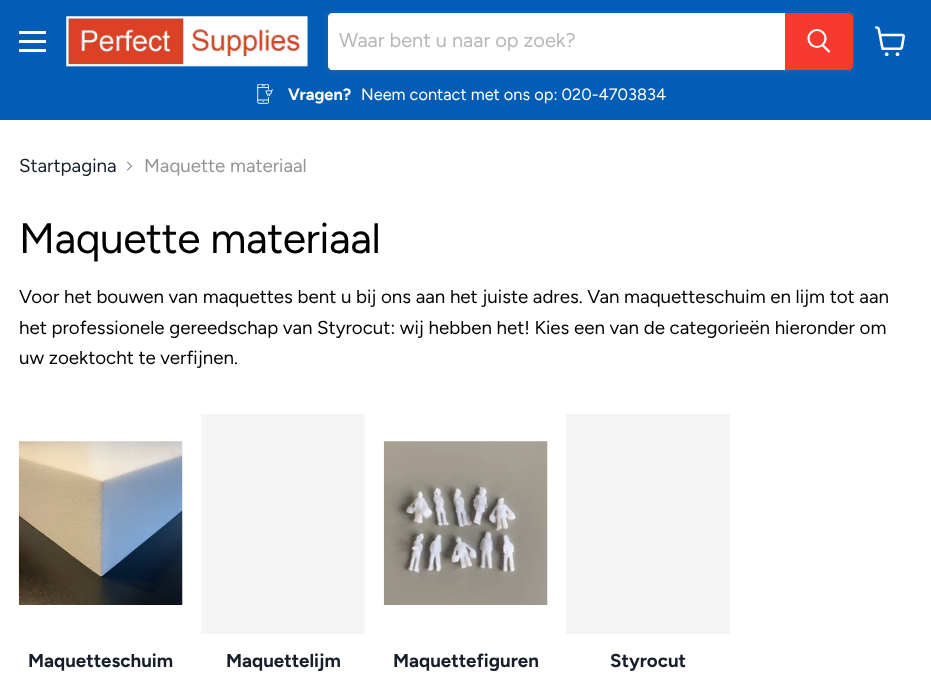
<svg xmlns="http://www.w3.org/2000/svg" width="931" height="693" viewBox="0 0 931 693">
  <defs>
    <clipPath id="clip1"><path d="M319 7H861V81H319ZM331 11H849C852 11 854 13 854 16V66C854 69 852 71 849 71H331C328 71 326 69 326 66V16C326 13 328 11 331 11Z" clip-rule="evenodd"/></clipPath>
    <filter id="blur1" x="-50%" y="-200%" width="200%" height="500%"><feGaussianBlur stdDeviation="2"/></filter>
  </defs>
  <rect width="100%" height="100%" fill="#ffffff"/>
  <rect x="0" y="0" width="931" height="120" fill="#035db7"/>
  <rect x="19" y="31" width="27" height="3" fill="#ffffff"/>
  <rect x="19" y="40" width="27" height="3" fill="#ffffff"/>
  <rect x="19" y="49" width="27" height="3" fill="#ffffff"/>
  <image x="66" y="16" width="242" height="51" href="img1.png"/>
  <g clip-path="url(#clip1)">
    <rect x="326" y="14" width="528" height="60" rx="5" fill="#808080" fill-opacity="0.11" filter="url(#blur1)"/>
  </g>
  <rect x="326.5" y="11.5" width="527" height="59" rx="4.5" fill="none" stroke="#808080" stroke-opacity="0.2"/>
  <path d="M332 13H785V70H332C330 70 328 68 328 66V17C328 15 330 13 332 13Z" fill="#ffffff"/>
  <text x="339" y="47" font-family="Figtree" font-size="20" fill="#b8b8b8">Waar bent u naar op zoek?</text>
  <path d="M785.5 13.5H849C851 13.5 852.5 15 852.5 17V66C852.5 68 851 69.5 849 69.5H785.5Z" fill="#f73a2f" stroke="#f73a2f"/>
  <path d="M829 51.5L823 45.5" fill="none" stroke="#ffffff" stroke-width="2.2" stroke-linecap="round"/>
  <circle cx="817" cy="38.5" r="8.5" fill="none" stroke="#ffffff" stroke-width="2.2"/>
  <image x="257" y="84" width="16" height="20" href="img2.png"/>
  <text x="288" y="100" font-family="Figtree" font-size="16.4" font-weight="bold" fill="#ffffff">Vragen?</text>
  <text x="361" y="100" font-family="Figtree" font-size="16.4" fill="#ffffff">Neem contact met ons op: 020-4703834</text>
  <image x="875" y="26" width="30" height="30" href="img3.png"/>
  <text x="19" y="172" font-family="Figtree" font-size="18.75" fill="#171f2b">Startpagina</text>
  <image x="127" y="161" width="6" height="10" href="img4.png"/>
  <text x="144" y="172" font-family="Figtree" font-size="18.75" fill="#949494">Maquette materiaal</text>
  <text x="19" y="253" font-family="Figtree" font-size="42.5" letter-spacing="-0.4" fill="#000000">Maquette materiaal</text>
  <text x="19" y="303" font-family="Figtree" font-size="18.75" fill="#000000">Voor het bouwen van maquettes bent u bij ons aan het juiste adres. Van maquetteschuim en lijm tot aan</text>
  <text x="19" y="334" font-family="Figtree" font-size="18.75" fill="#000000">het professionele gereedschap van Styrocut: wij hebben het! Kies een van de categorieën hieronder om</text>
  <text x="19" y="364" font-family="Figtree" font-size="18.75" fill="#000000">uw zoektocht te verfijnen.</text>
  <image x="18" y="441" width="165" height="164" href="img5.png"/>
  <text x="28" y="667" font-family="Figtree" font-size="18.75" font-weight="bold" fill="#171f2b">Maquetteschuim</text>
  <rect x="201" y="414" width="164" height="220" fill="#f5f5f5"/>
  <text x="226" y="667" font-family="Figtree" font-size="18.75" font-weight="bold" fill="#171f2b">Maquettelijm</text>
  <image x="383" y="441" width="165" height="164" href="img6.png"/>
  <text x="393" y="667" font-family="Figtree" font-size="18.75" font-weight="bold" fill="#171f2b">Maquettefiguren</text>
  <rect x="566" y="414" width="164" height="220" fill="#f5f5f5"/>
  <text x="610" y="667" font-family="Figtree" font-size="18.75" font-weight="bold" fill="#171f2b">Styrocut</text>
</svg>
